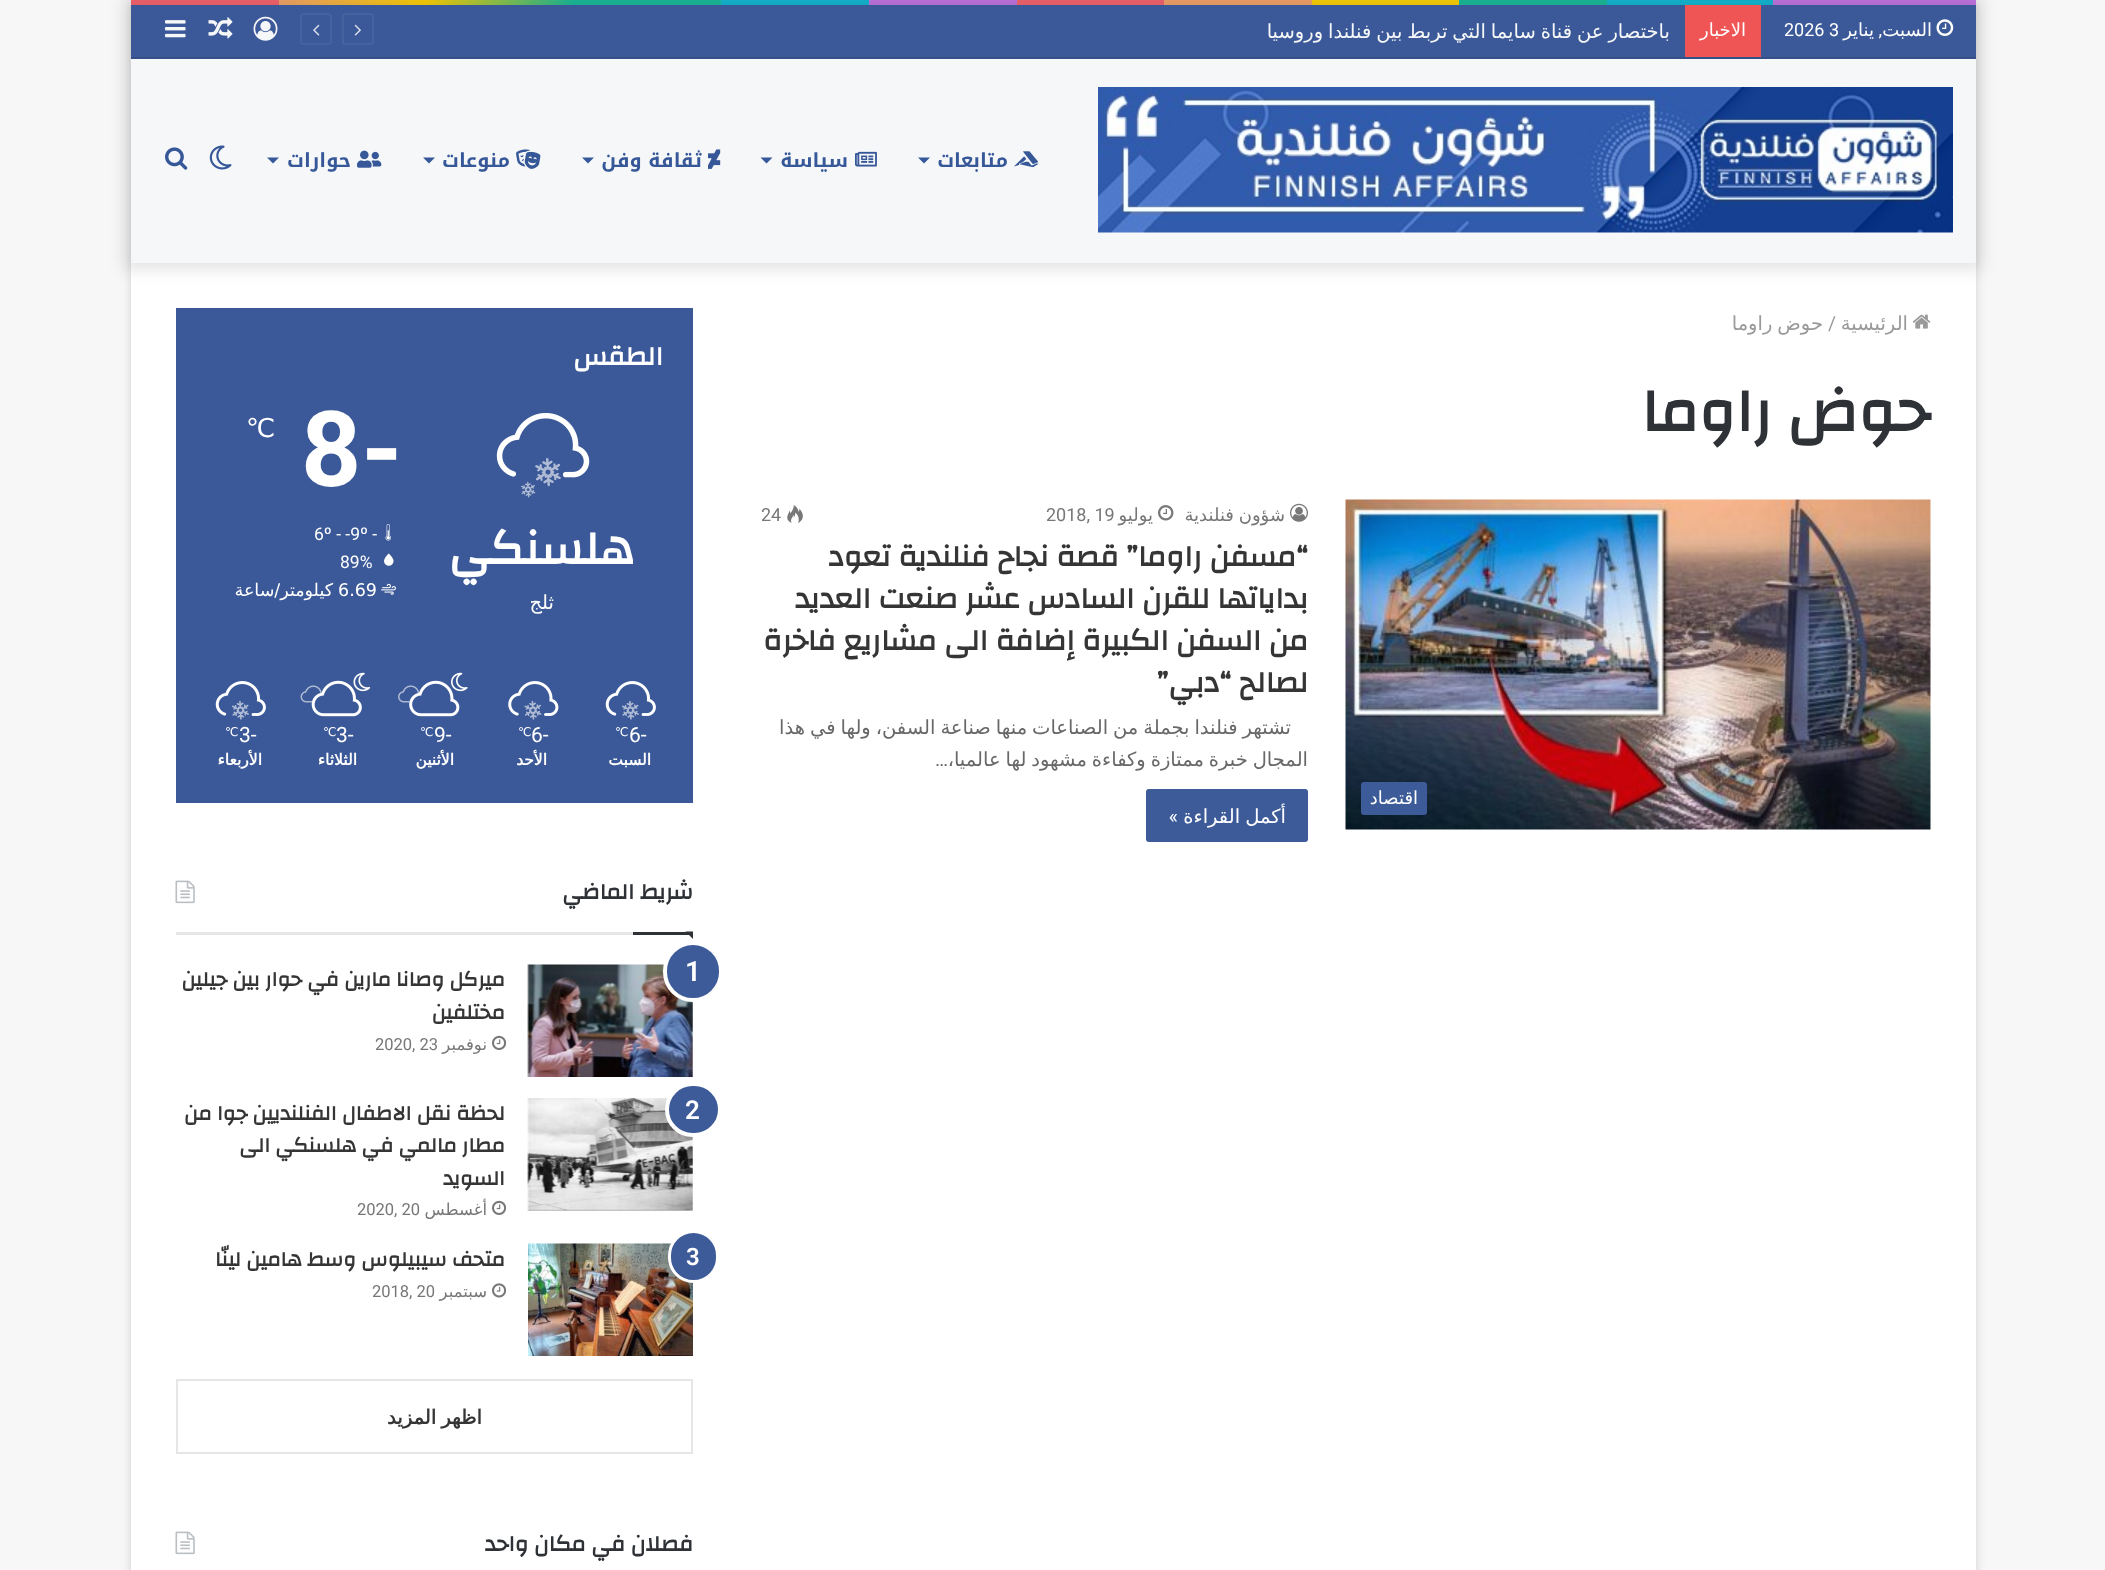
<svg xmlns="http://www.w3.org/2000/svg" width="2105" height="1570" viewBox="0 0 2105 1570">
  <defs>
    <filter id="blur1" x="-50%" y="-200%" width="200%" height="500%"><feGaussianBlur stdDeviation="5"/></filter>
    <linearGradient id="g1" gradientUnits="userSpaceOnUse" x1="131" y1="2.3" x2="1976" y2="2.2"><stop offset="0" stop-color="#f76570"/><stop offset="0.08" stop-color="#f76570"/><stop offset="0.08" stop-color="#f3a46b"/><stop offset="0.16" stop-color="#ffd205"/><stop offset="0.24" stop-color="#1bbc9b"/><stop offset="0.32" stop-color="#1bbc9b"/><stop offset="0.32" stop-color="#14b9d5"/><stop offset="0.4" stop-color="#14b9d5"/><stop offset="0.4" stop-color="#c377e4"/><stop offset="0.48" stop-color="#c377e4"/><stop offset="0.48" stop-color="#f76570"/><stop offset="0.56" stop-color="#f76570"/><stop offset="0.56" stop-color="#f3a46b"/><stop offset="0.64" stop-color="#f3a46b"/><stop offset="0.64" stop-color="#ffd205"/><stop offset="0.72" stop-color="#ffd205"/><stop offset="0.72" stop-color="#1bbc9b"/><stop offset="0.8" stop-color="#1bbc9b"/><stop offset="0.8" stop-color="#14b9d5"/><stop offset="0.89" stop-color="#14b9d5"/><stop offset="0.89" stop-color="#c377e4"/><stop offset="1" stop-color="#c377e4"/></linearGradient>
    <filter id="blur2" x="-50%" y="-200%" width="200%" height="500%"><feGaussianBlur stdDeviation="7.5"/></filter>
    <clipPath id="clip1"><rect x="1268" y="5" width="402" height="52"/></clipPath>
  </defs>
  <rect width="100%" height="100%" fill="#f7f7f7"/>
  <rect x="131" y="2" width="1845" height="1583" fill="#ababab" fill-opacity="0.5" filter="url(#blur1)"/>
  <rect x="131" y="263" width="1845" height="1307" fill="#ffffff"/>
  <rect x="131" y="0" width="1845" height="5" fill="url(#g1)"/>
  <rect x="123" y="-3" width="1860" height="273" fill="#000000" fill-opacity="0.1" filter="url(#blur2)"/>
  <rect x="131" y="5" width="1845" height="52" fill="#3b5998"/>
  <rect x="131" y="57" width="1845" height="2" fill="#355089"/>
  <image x="1936" y="19" width="18" height="17" href="img1.png"/>
  <text x="1932" y="36" font-family="DejaVu Sans" font-size="18" direction="rtl" fill="#ffffff">السبت</text>
  <text x="1882" y="36" font-family="Roboto" font-size="18" direction="rtl" fill="#ffffff">,</text>
  <text x="1874" y="36" font-family="DejaVu Sans" font-size="18" direction="rtl" fill="#ffffff">يناير</text>
  <text x="1784" y="36" font-family="Roboto" font-size="18" fill="#ffffff">2026 3</text>
  <rect x="1685" y="5" width="76" height="52" fill="#f05555"/>
  <text x="1746" y="36" font-family="DejaVu Sans" font-size="18" direction="rtl" fill="#ffffff">الاخبار</text>
  <g clip-path="url(#clip1)">
    <text x="1670" y="38" word-spacing="-1.25" font-family="DejaVu Sans" font-size="19.5" direction="rtl" fill="#f6f7f9">باختصار عن قناة سايما التي تربط بين فنلندا وروسيا</text>
  </g>
  <path d="M370.5 44H345C344 44 343 43 343 42V16.5C343 15.5 344 14 345 14H370.5C371.5 14 373 15.5 373 16.5V42C373 43 371.5 44 370.5 44Z" fill="none" stroke="#4b66a0" stroke-width="1.5"/>
  <image x="354" y="24" width="7" height="12" href="img2.png"/>
  <path d="M328.5 44H303C302 44 301 43 301 42V16.5C301 15.5 302 14 303 14H328.5C329.5 14 331 15.5 331 16.5V42C331 43 329.5 44 328.5 44Z" fill="none" stroke="#4b66a0" stroke-width="1.5"/>
  <image x="313" y="24" width="7" height="12" href="img3.png"/>
  <image x="253" y="16" width="25" height="25" href="img4.png"/>
  <image x="208" y="17" width="25" height="22" href="img5.png"/>
  <image x="165" y="20" width="21" height="18" href="img6.png"/>
  <rect x="131" y="59" width="1845" height="204" fill="#f6f7f9"/>
  <image x="1098" y="87" width="855" height="146" href="img7.png"/>
  <image x="1014" y="151" width="25" height="17" href="img8.png"/>
  <text x="1008" y="167" font-family="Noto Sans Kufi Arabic" font-size="19.5" font-weight="bold" direction="rtl" fill="#365899">متابعات</text>
  <path d="M918 157.5H930L924 163.5Z" fill="#365899"/>
  <image x="855" y="151" width="22" height="16" href="img9.png"/>
  <text x="848" y="167" font-family="Noto Sans Kufi Arabic" font-size="19.5" font-weight="bold" direction="rtl" fill="#365899">سياسة</text>
  <path d="M760.5 157.5H772.5L766.5 163.5Z" fill="#365899"/>
  <image x="708" y="149" width="13" height="20" href="img10.png"/>
  <text x="702" y="167" font-family="Noto Sans Kufi Arabic" font-size="19.5" font-weight="bold" direction="rtl" fill="#365899">ثقافة وفن</text>
  <path d="M582 157.5H594L588 163.5Z" fill="#365899"/>
  <image x="516" y="149" width="25" height="20" href="img11.png"/>
  <text x="510" y="167" font-family="Noto Sans Kufi Arabic" font-size="19.5" font-weight="bold" direction="rtl" fill="#365899">منوعات</text>
  <path d="M423 157.5H435L429 163.5Z" fill="#365899"/>
  <image x="357" y="150" width="25" height="18" href="img12.png"/>
  <text x="351" y="167" font-family="Noto Sans Kufi Arabic" font-size="19.5" font-weight="bold" direction="rtl" fill="#365899">حوارات</text>
  <path d="M267 157.5H279L273 163.5Z" fill="#365899"/>
  <image x="209" y="145" width="23" height="25" href="img13.png"/>
  <image x="165" y="147" width="23" height="23" href="img14.png"/>
  <image x="1912" y="314" width="19" height="15" href="img15.png"/>
  <text x="1908" y="330" font-family="DejaVu Sans" font-size="19.5" direction="rtl" fill="#9a9a9a">الرئيسية</text>
  <text x="1828" y="330" font-family="Roboto" font-size="19.5" fill="#9a9a9a">/</text>
  <text x="1823" y="330" word-spacing="-1.25" font-family="DejaVu Sans" font-size="19.5" direction="rtl" fill="#9a9a9a">حوض راوما</text>
  <text x="1930" y="431" font-family="Changa" font-size="61.5" font-weight="bold" direction="rtl" fill="#2e3136">حوض راوما</text>
  <image x="1345" y="499" width="586" height="331" href="img16.png"/>
  <rect x="1361" y="782" width="66" height="33" rx="3" fill="#3d5b99"/>
  <text x="1418" y="804" font-family="DejaVu Sans" font-size="18" direction="rtl" fill="#ffffff">اقتصاد</text>
  <image x="1290" y="503" width="18" height="19" href="img17.png"/>
  <text x="1285" y="521" word-spacing="-1" font-family="DejaVu Sans" font-size="18" direction="rtl" fill="#777777">شؤون فنلندية</text>
  <image x="1158" y="505" width="16" height="16" href="img18.png"/>
  <text x="1153" y="521" font-family="DejaVu Sans" font-size="18" direction="rtl" fill="#777777">يوليو</text>
  <text x="1046" y="521" font-family="Roboto" font-size="18" fill="#777777">2018, 19</text>
  <image x="787" y="505" width="16" height="18" href="img19.png"/>
  <text x="761" y="521" font-family="Roboto" font-size="18" fill="#777777">24</text>
  <text x="1308" y="566" font-family="Changa" font-size="30" font-weight="bold" direction="rtl" fill="#353535">“مسفن راوما” قصة نجاح فنلندية تعود</text>
  <text x="1308" y="608" font-family="Changa" font-size="30" font-weight="bold" direction="rtl" fill="#353535">بداياتها للقرن السادس عشر صنعت العديد</text>
  <text x="1308" y="650" font-family="Changa" font-size="30" font-weight="bold" direction="rtl" fill="#353535">من السفن الكبيرة إضافة الى مشاريع فاخرة</text>
  <text x="1308" y="692" font-family="Changa" font-size="30" font-weight="bold" direction="rtl" fill="#353535">لصالح “دبي”</text>
  <text x="1291" y="734" word-spacing="-1.25" font-family="DejaVu Sans" font-size="19.5" direction="rtl" fill="#686868">تشتهر فنلندا بجملة من الصناعات منها صناعة السفن، ولها في هذا</text>
  <text x="1308" y="766" word-spacing="-1.25" font-family="DejaVu Sans" font-size="19.5" direction="rtl" fill="#686868">المجال خبرة ممتازة وكفاءة مشهود لها عالميا،</text>
  <text x="948" y="766" font-family="Roboto" font-size="19.5" direction="rtl" fill="#686868">…</text>
  <rect x="1146" y="789" width="162" height="53" rx="3" fill="#3d5b99"/>
  <text x="1286" y="823" word-spacing="-1" font-family="DejaVu Sans" font-size="19.5" direction="rtl" fill="#ffffff">أكمل القراءة</text>
  <text x="1178" y="823" font-family="Roboto" font-size="19.5" direction="rtl" fill="#ffffff">»</text>
  <rect x="176" y="308" width="517" height="495" fill="#3b5998"/>
  <text x="663" y="365" font-family="Changa" font-size="27" font-weight="bold" direction="rtl" fill="#ffffff">الطقس</text>
  <image x="496" y="412" width="94" height="66" href="img20.png"/>
  <image x="535" y="458" width="26" height="29" href="img21.png"/>
  <image x="521" y="481" width="15" height="17" href="img22.png"/>
  <text x="634" y="564" font-family="Changa" font-size="48" font-weight="bold" direction="rtl" fill="#ffffff">هلسنكي</text>
  <text x="554" y="609" font-family="DejaVu Sans" font-size="19.5" direction="rtl" fill="#ffffff">ثلج</text>
  <text x="301" y="486" font-family="Roboto" font-size="105" font-weight="bold" fill="#ffffff">8-</text>
  <text x="246" y="437" font-family="DejaVu Sans" font-size="26" fill="#ffffff">℃</text>
  <image x="385" y="524" width="6" height="17" href="img23.png"/>
  <text x="314" y="540" font-family="Roboto" font-size="17.5" fill="#ffffff">6º - -9º -</text>
  <image x="384" y="553" width="10" height="13" href="img24.png"/>
  <text x="340" y="568" font-family="Roboto" font-size="17.5" fill="#ffffff">89%</text>
  <image x="381" y="583" width="15" height="12" href="img25.png"/>
  <text x="338" y="596" font-family="DejaVu Sans" font-size="17.5" fill="#ffffff">6.69</text>
  <text x="333" y="596" font-family="DejaVu Sans" font-size="17.5" direction="rtl" fill="#ffffff">كيلومتر/ساعة</text>
  <image x="605" y="681" width="51" height="35" href="img26.png"/>
  <image x="622" y="700" width="17" height="20" href="img27.png"/>
  <text x="629" y="742" font-family="Roboto" font-size="21" fill="#ffffff">6-</text>
  <text x="615" y="736" font-family="DejaVu Sans" font-size="12" fill="#ffffff">℃</text>
  <text x="651" y="765" font-family="DejaVu Sans" font-size="15.5" font-weight="bold" direction="rtl" fill="#ffffff">السبت</text>
  <image x="508" y="681" width="51" height="35" href="img28.png"/>
  <image x="524" y="700" width="18" height="20" href="img29.png"/>
  <text x="531" y="742" font-family="Roboto" font-size="21" fill="#ffffff">6-</text>
  <text x="518" y="736" font-family="DejaVu Sans" font-size="12" fill="#ffffff">℃</text>
  <text x="547" y="765" font-family="DejaVu Sans" font-size="15.5" font-weight="bold" direction="rtl" fill="#ffffff">الأحد</text>
  <image x="451" y="672" width="17" height="20" href="img30.png"/>
  <image x="398" y="685" width="22" height="18" href="img32.png"/>
  <image x="409" y="692" width="14" height="11" href="img33.png"/>
  <image x="409" y="680" width="51" height="37" href="img31.png"/>
  <text x="434" y="742" font-family="Roboto" font-size="21" fill="#ffffff">9-</text>
  <text x="420" y="736" font-family="DejaVu Sans" font-size="12" fill="#ffffff">℃</text>
  <text x="454" y="765" font-family="DejaVu Sans" font-size="15.5" font-weight="bold" direction="rtl" fill="#ffffff">الأثنين</text>
  <image x="353" y="672" width="18" height="20" href="img34.png"/>
  <image x="300" y="685" width="22" height="18" href="img36.png"/>
  <image x="311" y="692" width="14" height="11" href="img37.png"/>
  <image x="311" y="680" width="51" height="37" href="img35.png"/>
  <text x="336" y="742" font-family="Roboto" font-size="21" fill="#ffffff">3-</text>
  <text x="323" y="736" font-family="DejaVu Sans" font-size="12" fill="#ffffff">℃</text>
  <text x="357" y="765" font-family="DejaVu Sans" font-size="15.5" font-weight="bold" direction="rtl" fill="#ffffff">الثلاثاء</text>
  <image x="215" y="681" width="51" height="35" href="img26.png"/>
  <image x="232" y="700" width="17" height="20" href="img27.png"/>
  <text x="239" y="742" font-family="Roboto" font-size="21" fill="#ffffff">3-</text>
  <text x="225" y="736" font-family="DejaVu Sans" font-size="12" fill="#ffffff">℃</text>
  <text x="262" y="765" font-family="DejaVu Sans" font-size="15.5" font-weight="bold" direction="rtl" fill="#ffffff">الأربعاء</text>
  <rect x="176" y="932" width="457" height="3" fill="#e6e6e6"/>
  <text x="693" y="899" font-family="Changa" font-size="22.5" font-weight="bold" direction="rtl" fill="#2e3136">شريط الماضي</text>
  <image x="175" y="880" width="20" height="24" href="img38.png"/>
  <path d="M685.5 931.5H693V939Z" fill="#2e3136"/>
  <rect x="633" y="932" width="60" height="3" fill="#2e3136"/>
  <image x="527" y="964" width="166" height="113" href="img39.png"/>
  <rect x="665" y="943" width="56" height="57" rx="28" fill="#3d5b99" stroke="#ffffff" stroke-width="4"/>
  <text x="685" y="981" font-family="Roboto" font-size="28" font-weight="600" fill="#ffffff">1</text>
  <text x="505" y="986" font-family="Changa" font-size="21" font-weight="bold" direction="rtl" fill="#353535">ميركل وصانا مارين في حوار بين جيلين</text>
  <text x="505" y="1019" font-family="Changa" font-size="21" font-weight="bold" direction="rtl" fill="#353535">مختلفين</text>
  <image x="492" y="1035" width="14" height="15" href="img40.png"/>
  <text x="487" y="1050" font-family="DejaVu Sans" font-size="16.5" direction="rtl" fill="#777777">نوفمبر</text>
  <text x="375" y="1050" font-family="Roboto" font-size="16.5" fill="#777777">2020, 23</text>
  <image x="527" y="1098" width="166" height="113" href="img41.png"/>
  <rect x="667" y="1084" width="53" height="51" rx="25.5" fill="#3d5b99" stroke="#ffffff" stroke-width="4"/>
  <text x="685" y="1119" font-family="Roboto" font-size="26" font-weight="600" fill="#ffffff">2</text>
  <text x="505" y="1120" font-family="Changa" font-size="21" font-weight="bold" direction="rtl" fill="#353535">لحظة نقل الاطفال الفنلنديين جوا من</text>
  <text x="505" y="1152" font-family="Changa" font-size="21" font-weight="bold" direction="rtl" fill="#353535">مطار مالمي في هلسنكي الى</text>
  <text x="505" y="1185" font-family="Changa" font-size="21" font-weight="bold" direction="rtl" fill="#353535">السويد</text>
  <image x="492" y="1200" width="14" height="15" href="img40.png"/>
  <text x="487" y="1215" font-family="DejaVu Sans" font-size="16.5" direction="rtl" fill="#777777">أغسطس</text>
  <text x="357" y="1215" font-family="Roboto" font-size="16.5" fill="#777777">2020, 20</text>
  <image x="528" y="1243" width="165" height="113" href="img42.png"/>
  <text x="505" y="1266" font-family="Changa" font-size="21" font-weight="bold" direction="rtl" fill="#353535">متحف سيبيلوس وسط هامين لينّا</text>
  <image x="492" y="1283" width="14" height="15" href="img43.png"/>
  <text x="487" y="1297" font-family="DejaVu Sans" font-size="16.5" direction="rtl" fill="#777777">سبتمبر</text>
  <text x="372" y="1297" font-family="Roboto" font-size="16.5" fill="#777777">2018, 20</text>
  <rect x="669.5" y="1231.5" width="48" height="50" rx="24" fill="#3d5b99" stroke="#ffffff" stroke-width="3"/>
  <text x="686" y="1265" font-family="Roboto" font-size="24" font-weight="600" fill="#ffffff">3</text>
  <rect x="177" y="1380" width="515" height="73" fill="none" stroke="#e6e6e6" stroke-width="2"/>
  <text x="482" y="1424" word-spacing="-1" font-family="DejaVu Sans" font-size="19.5" font-weight="bold" direction="rtl" fill="#353535">اظهر المزيد</text>
  <text x="693" y="1551" font-family="Changa" font-size="22.5" font-weight="bold" direction="rtl" fill="#2e3136">فصلان في مكان واحد</text>
  <image x="175" y="1531" width="20" height="24" href="img38.png"/>
</svg>
